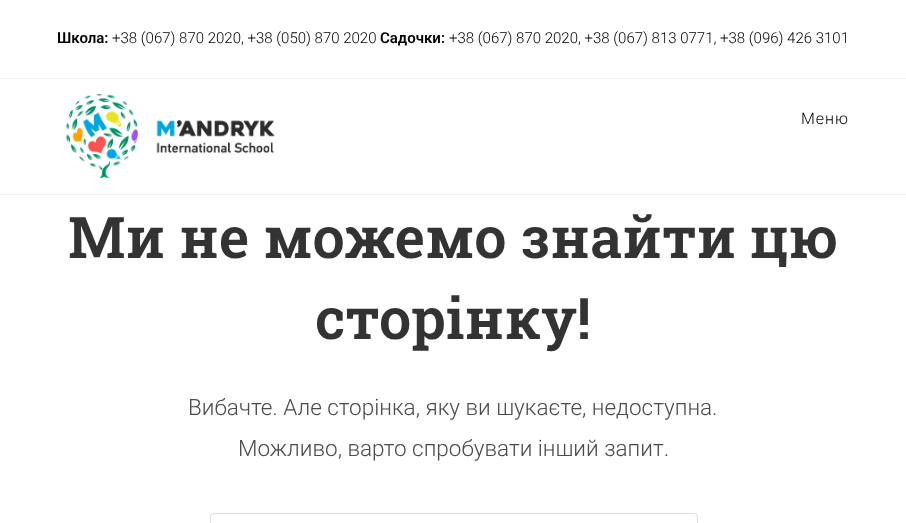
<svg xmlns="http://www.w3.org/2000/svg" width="906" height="523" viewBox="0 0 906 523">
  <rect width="100%" height="100%" fill="#ffffff"/>
  <rect x="0" y="78" width="906" height="1" fill="#f1f1f1"/>
  <text x="57" y="43" font-family="Roboto" font-size="15" font-weight="600" fill="#000000">Школа:</text>
  <text x="112" y="43" font-family="Roboto" font-size="15" font-weight="300" fill="#000000">+38 (067) 870 2020, +38 (050) 870 2020</text>
  <text x="380" y="43" font-family="Roboto" font-size="15" font-weight="600" fill="#000000">Садочки:</text>
  <text x="449" y="43" font-family="Roboto" font-size="15" font-weight="300" fill="#000000">+38 (067) 870 2020, +38 (067) 813 0771, +38 (096) 426 3101</text>
  <rect x="0" y="194" width="906" height="1" fill="#f1f1f1"/>
  <image x="66" y="94" width="209" height="85" href="img1.png"/>
  <text x="801" y="124" font-family="Roboto" font-size="16" font-weight="300" letter-spacing="1" fill="#000000">Меню</text>
  <text x="68" y="258" font-family="Roboto Slab" font-size="57.5" font-weight="600" fill="#333333">Ми не можемо знайти цю</text>
  <text x="315" y="339" font-family="Roboto Slab" font-size="57.5" font-weight="600" fill="#333333">сторінку!</text>
  <text x="188" y="415" font-family="Roboto" font-size="22.5" font-weight="300" fill="#4a4a4a">Вибачте. Але сторінка, яку ви шукаєте, недоступна.</text>
  <text x="238" y="456" font-family="Roboto" font-size="22.5" font-weight="300" fill="#4a4a4a">Можливо, варто спробувати інший запит.</text>
  <rect x="210.5" y="513.5" width="487" height="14" rx="3.5" fill="none" stroke="#dddddd"/>
</svg>
